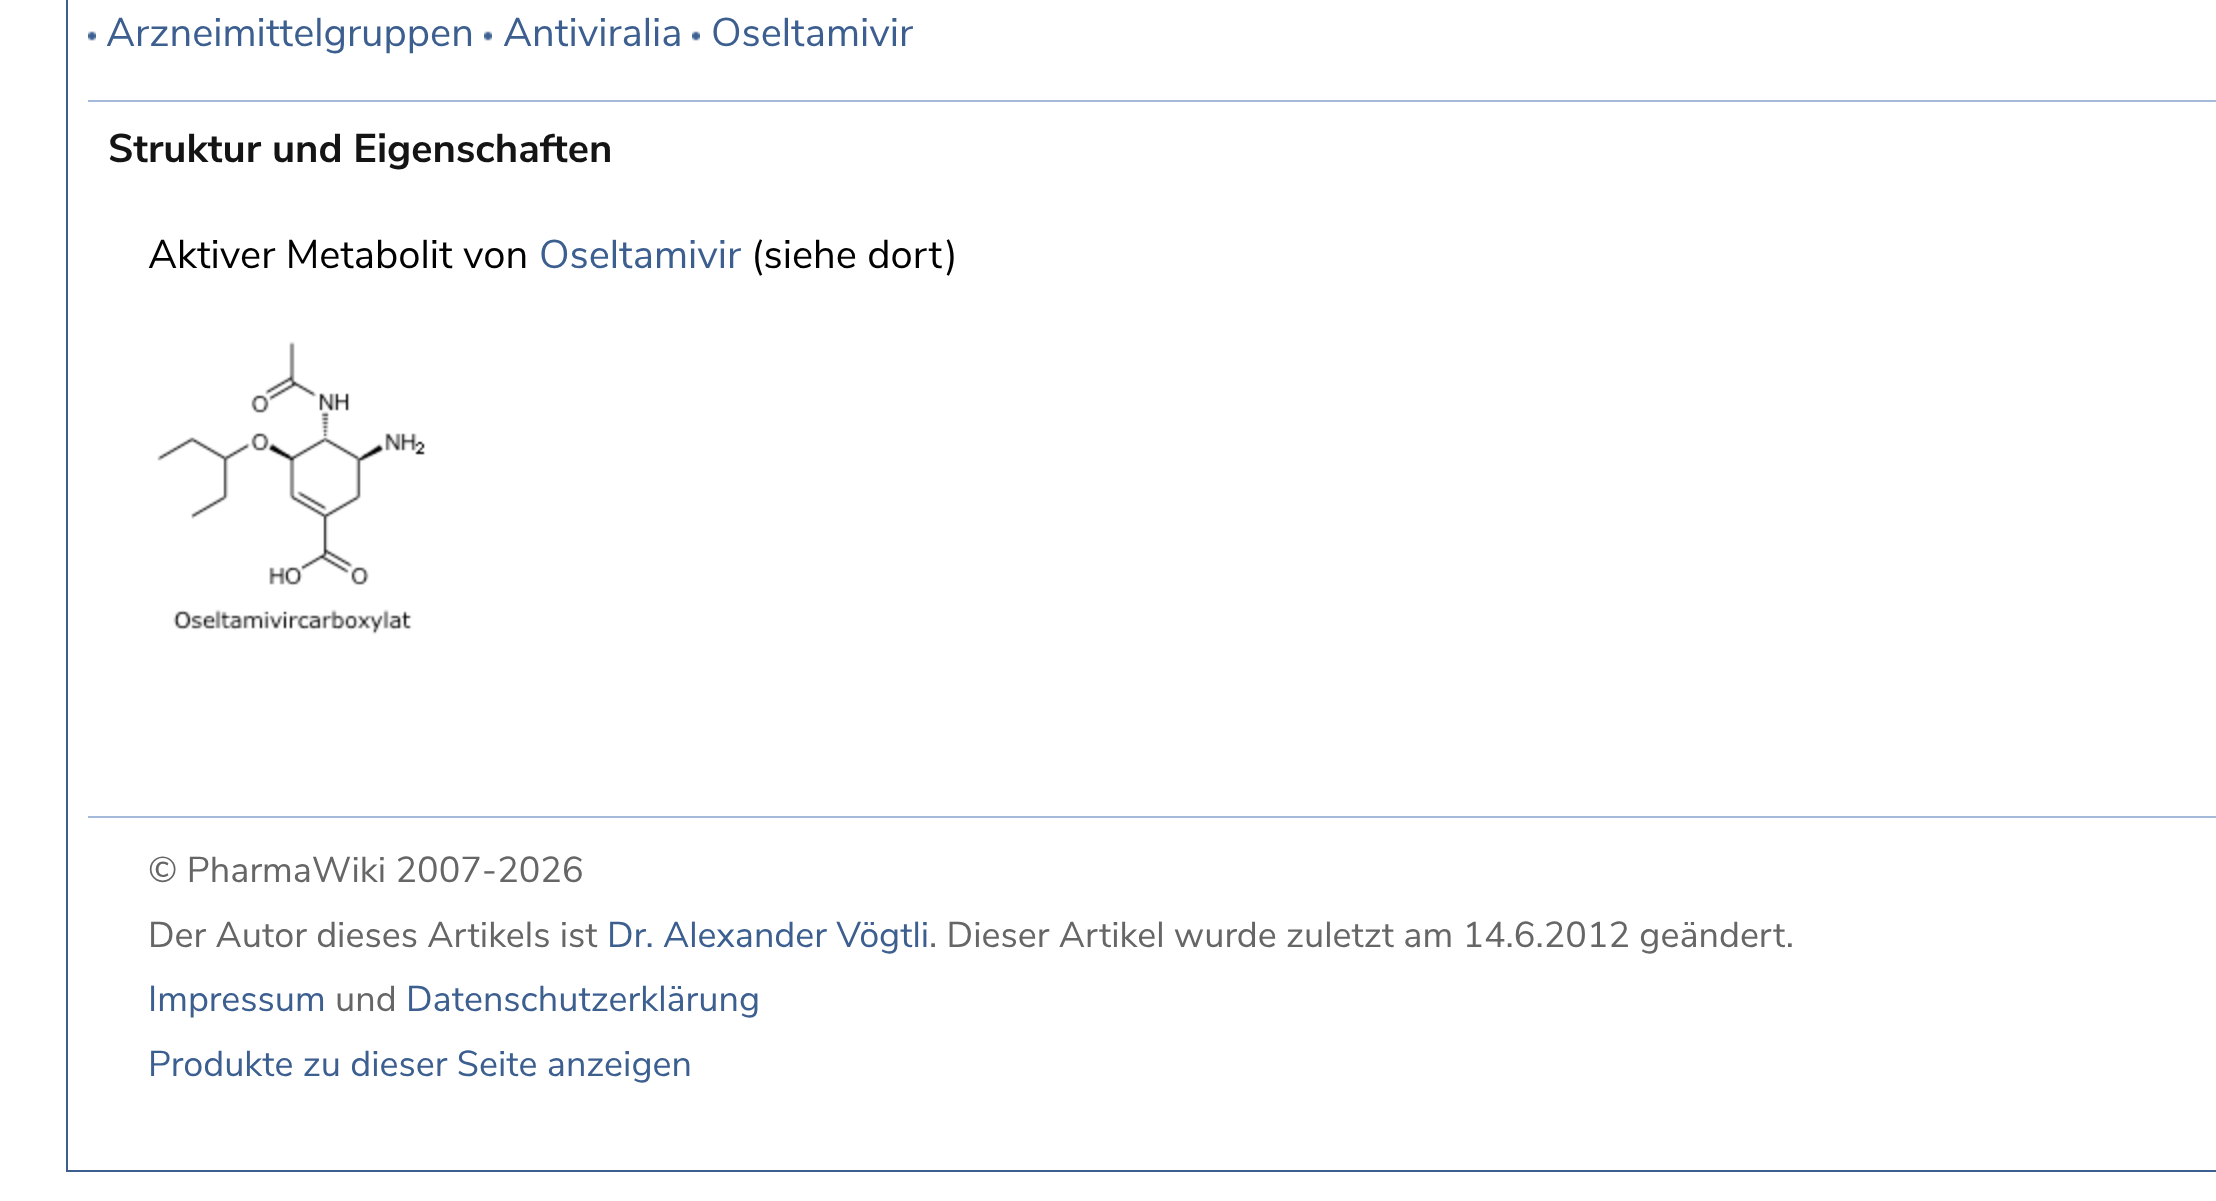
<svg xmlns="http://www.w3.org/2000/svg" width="2216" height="1201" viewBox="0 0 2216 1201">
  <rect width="100%" height="100%" fill="#ffffff"/>
  <rect x="67" y="-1" width="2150" height="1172" fill="none" stroke="#3c5f90" stroke-width="2"/>
  <image x="88" y="31" width="8" height="10" href="img1.png"/>
  <text x="106" y="46" font-family="Nunito Sans" font-size="40" fill="#3c5f90">Arzneimittelgruppen</text>
  <image x="484" y="31" width="8" height="10" href="img1.png"/>
  <text x="503" y="46" font-family="Nunito Sans" font-size="40" fill="#3c5f90">Antiviralia</text>
  <image x="692" y="31" width="8" height="10" href="img1.png"/>
  <text x="711" y="46" font-family="Nunito Sans" font-size="40" fill="#3c5f90">Oseltamivir</text>
  <rect x="88" y="100" width="2128" height="2" fill="#a5bada"/>
  <text x="108" y="162" font-family="Nunito Sans" font-size="40" font-weight="bold" fill="#141414">Struktur und Eigenschaften</text>
  <text x="148" y="268" font-family="Nunito Sans" font-size="40" fill="#000000">Aktiver Metabolit von</text>
  <text x="539" y="268" font-family="Nunito Sans" font-size="40" fill="#3c5f90">Oseltamivir</text>
  <text x="751" y="268" font-family="Nunito Sans" font-size="40" fill="#000000">(siehe dort)</text>
  <image x="157" y="341" width="268" height="294" href="img2.png"/>
  <rect x="88" y="816" width="2128" height="2" fill="#a5bada"/>
  <text x="148" y="882" font-family="Nunito Sans" font-size="36" fill="#666666">© PharmaWiki 2007-2026</text>
  <text x="148" y="947" font-family="Nunito Sans" font-size="36" fill="#666666">Der Autor dieses Artikels ist</text>
  <text x="607" y="947" font-family="Nunito Sans" font-size="36" fill="#3c5f90">Dr. Alexander Vögtli</text>
  <text x="929" y="947" font-family="Nunito Sans" font-size="36" fill="#666666">. Dieser Artikel wurde zuletzt am 14.6.2012 geändert.</text>
  <text x="148" y="1011" font-family="Nunito Sans" font-size="36" fill="#3c5f90">Impressum</text>
  <text x="335" y="1011" font-family="Nunito Sans" font-size="36" fill="#666666">und</text>
  <text x="406" y="1011" font-family="Nunito Sans" font-size="36" fill="#3c5f90">Datenschutzerklärung</text>
  <text x="148" y="1076" font-family="Nunito Sans" font-size="36" fill="#3c5f90">Produkte zu dieser Seite anzeigen</text>
</svg>
